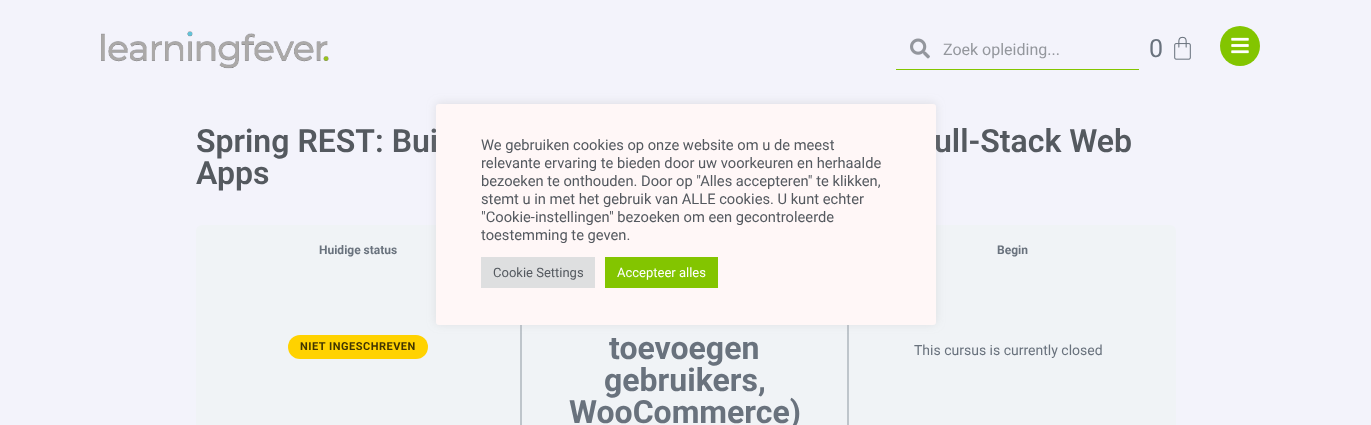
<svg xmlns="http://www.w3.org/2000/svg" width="1371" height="425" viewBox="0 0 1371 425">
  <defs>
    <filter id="blur1" x="-50%" y="-200%" width="200%" height="500%"><feGaussianBlur stdDeviation="5"/></filter>
  </defs>
  <rect width="100%" height="100%" fill="#f3f3fb"/>
  <image x="101" y="31" width="228" height="38" href="img1.png"/>
  <rect x="896" y="69" width="243" height="1" fill="#83c500"/>
  <image x="910" y="38" width="20" height="21" href="img2.png"/>
  <text x="943" y="55" font-family="Roboto" font-size="16" fill="#94979d">Zoek opleiding...</text>
  <text x="1149" y="57" font-family="Roboto" font-size="25" fill="#69727d">0</text>
  <image x="1174" y="36" width="17" height="24" href="img3.png"/>
  <circle cx="1240" cy="46" r="20" fill="#83c500"/>
  <image x="1231" y="37" width="18" height="17" href="img4.png"/>
  <text x="196" y="152" font-family="Roboto" font-size="32" font-weight="600" fill="#54595f">Spring REST: Bui</text>
  <text x="934" y="152" font-family="Roboto" font-size="32" font-weight="600" fill="#54595f">ull-Stack Web</text>
  <text x="196" y="184" font-family="Roboto" font-size="32" font-weight="600" fill="#54595f">Apps</text>
  <rect x="196" y="225" width="980" height="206" rx="6" fill="#f0f3f6"/>
  <rect x="520" y="325" width="2" height="100" fill="#bec5cb"/>
  <text x="319" y="254" font-family="Roboto" font-size="12" font-weight="bold" fill="#69727d">Huidige status</text>
  <rect x="288" y="335" width="140" height="24" rx="12" fill="#ffd200"/>
  <text x="300" y="350" font-family="Roboto" font-size="11" font-weight="bold" letter-spacing="0.5" fill="#403500">NIET INGESCHREVEN</text>
  <text x="997" y="254" font-family="Roboto" font-size="12" font-weight="bold" fill="#69727d">Begin</text>
  <text x="914" y="355" font-family="Roboto" font-size="14" fill="#69727d">This cursus is currently closed</text>
  <rect x="847" y="325" width="2" height="100" fill="#bec5cb"/>
  <text x="609" y="359" font-family="Roboto" font-size="32" font-weight="bold" fill="#69727d">toevoegen</text>
  <text x="604" y="391" font-family="Roboto" font-size="32" font-weight="bold" fill="#69727d">gebruikers,</text>
  <text x="569" y="423" font-family="Roboto" font-size="32" font-weight="bold" fill="#69727d">WooCommerce)</text>
  <rect x="436" y="103" width="500" height="221" rx="3" fill="#acabab" fill-opacity="0.3" filter="url(#blur1)"/>
  <rect x="436" y="104" width="500" height="221" rx="3" fill="#fff7f7"/>
  <text x="481" y="150" font-family="Roboto" font-size="14.7" fill="#54595f">We gebruiken cookies op onze website om u de meest</text>
  <text x="481" y="168" font-family="Roboto" font-size="14.7" fill="#54595f">relevante ervaring te bieden door uw voorkeuren en herhaalde</text>
  <text x="481" y="186" font-family="Roboto" font-size="14.7" fill="#54595f">bezoeken te onthouden. Door op "Alles accepteren" te klikken,</text>
  <text x="481" y="204" font-family="Roboto" font-size="14.7" fill="#54595f">stemt u in met het gebruik van ALLE cookies. U kunt echter</text>
  <text x="481" y="222" font-family="Roboto" font-size="14.7" fill="#54595f">"Cookie-instellingen" bezoeken om een gecontroleerde</text>
  <text x="481" y="240" font-family="Roboto" font-size="14.7" fill="#54595f">toestemming te geven.</text>
  <rect x="481" y="257" width="114" height="31" fill="#dedfe0"/>
  <text x="493" y="277" font-family="Roboto" font-size="13" fill="#54595f">Cookie Settings</text>
  <rect x="605" y="257" width="113" height="31" fill="#83c500"/>
  <text x="617" y="277" font-family="Roboto" font-size="13" fill="#ffffff">Accepteer alles</text>
</svg>
